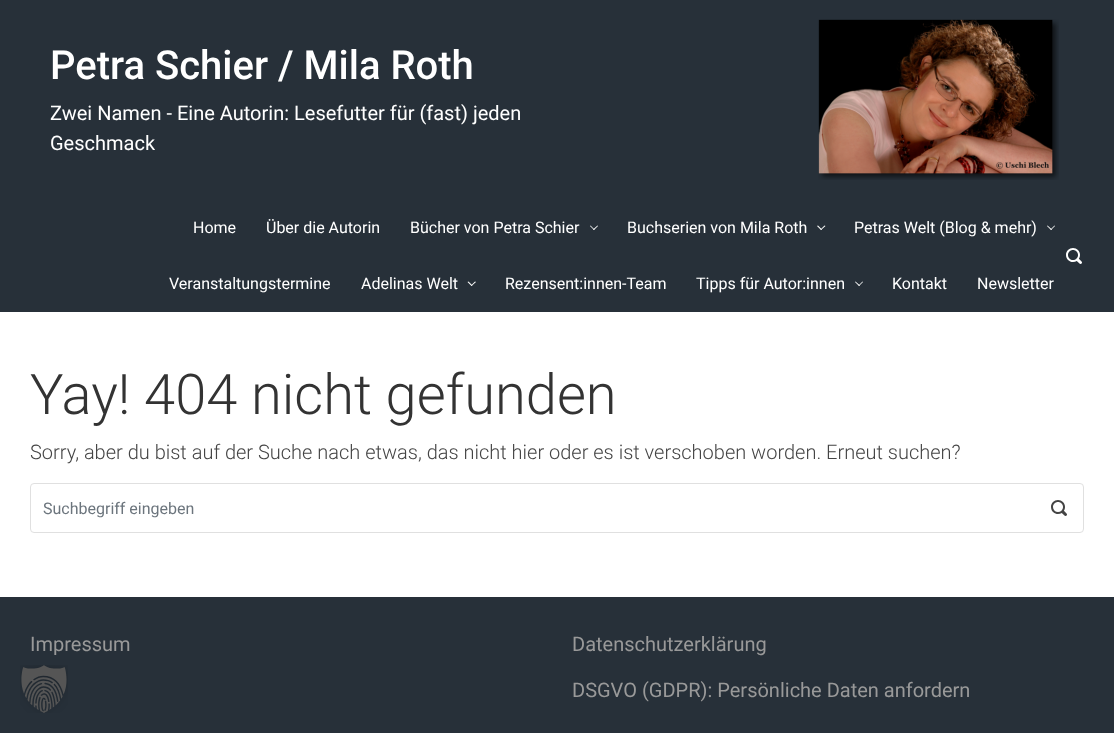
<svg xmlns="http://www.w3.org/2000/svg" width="1114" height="733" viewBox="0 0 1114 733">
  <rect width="100%" height="100%" fill="#273039"/>
  <text x="50" y="79" font-family="Roboto" font-size="40" font-weight="500" fill="#ffffff">Petra Schier / Mila Roth</text>
  <text x="50" y="120" font-family="Roboto" font-size="20" fill="#ffffff">Zwei Namen - Eine Autorin: Lesefutter für (fast) jeden</text>
  <text x="50" y="150" font-family="Roboto" font-size="20" fill="#ffffff">Geschmack</text>
  <image x="818" y="19" width="241" height="161" href="img1.png"/>
  <text x="193" y="233" font-family="Roboto" font-size="16" fill="#ffffff">Home</text>
  <text x="266" y="233" font-family="Roboto" font-size="16" fill="#ffffff">Über die Autorin</text>
  <text x="410" y="233" font-family="Roboto" font-size="16" fill="#ffffff">Bücher von Petra Schier</text>
  <path d="M597.5 225.5L598 226L594 230L593 229.5Z" fill="#ffffff"/>
  <path d="M590.5 225.5L594.5 229.5L594 230L590 226Z" fill="#ffffff"/>
  <text x="627" y="233" font-family="Roboto" font-size="16" fill="#ffffff">Buchserien von Mila Roth</text>
  <path d="M824.5 225.5L825.5 226L821 230L820.5 229.5Z" fill="#ffffff"/>
  <path d="M818 225.5L822 229.5L821 230L817 226Z" fill="#ffffff"/>
  <text x="854" y="233" font-family="Roboto" font-size="16" fill="#ffffff">Petras Welt (Blog &amp; mehr)</text>
  <path d="M1054.5 225.5L1055 226L1051 230L1050.5 229.5Z" fill="#ffffff"/>
  <path d="M1047.5 225.5L1052 229.5L1051 230L1047 226Z" fill="#ffffff"/>
  <text x="169" y="289" font-family="Roboto" font-size="16" fill="#ffffff">Veranstaltungstermine</text>
  <text x="361" y="289" font-family="Roboto" font-size="16" fill="#ffffff">Adelinas Welt</text>
  <path d="M475 281.5L476 282L471.5 286L471 285.5Z" fill="#ffffff"/>
  <path d="M468.5 281.5L472.5 285.5L471.5 286L467.5 282Z" fill="#ffffff"/>
  <text x="505" y="289" font-family="Roboto" font-size="16" fill="#ffffff">Rezensent:innen-Team</text>
  <text x="696" y="289" font-family="Roboto" font-size="16" fill="#ffffff">Tipps für Autor:innen</text>
  <path d="M862.5 281.5L863 282L859 286L858.5 285.5Z" fill="#ffffff"/>
  <path d="M855.5 281.5L860 285.5L859 286L855 282Z" fill="#ffffff"/>
  <text x="892" y="289" font-family="Roboto" font-size="16" fill="#ffffff">Kontakt</text>
  <text x="977" y="289" font-family="Roboto" font-size="16" fill="#ffffff">Newsletter</text>
  <image x="1066" y="248" width="16" height="16" href="img2.png"/>
  <rect x="0" y="312" width="1114" height="285" fill="#ffffff"/>
  <text x="30" y="414" font-family="Roboto" font-size="56" font-weight="300" fill="#333333">Yay! 404 nicht gefunden</text>
  <text x="30" y="459" font-family="Roboto" font-size="20" font-weight="300" fill="#444444">Sorry, aber du bist auf der Suche nach etwas, das nicht hier oder es ist verschoben worden. Erneut suchen?</text>
  <rect x="30.5" y="483.5" width="1053" height="49" rx="3.5" fill="none" stroke="#e0e0e0"/>
  <text x="43" y="514" font-family="Roboto" font-size="16" fill="#6c757d">Suchbegriff eingeben</text>
  <image x="1051" y="500" width="16" height="16" href="img3.png"/>
  <text x="30" y="651" font-family="Roboto" font-size="20" fill="#999999">Impressum</text>
  <text x="572" y="651" font-family="Roboto" font-size="20" fill="#999999">Datenschutzerklärung</text>
  <text x="572" y="697" font-family="Roboto" font-size="20" fill="#999999">DSGVO (GDPR): Persönliche Daten anfordern</text>
  <image x="20" y="665" width="48" height="48" href="img4.png"/>
</svg>
